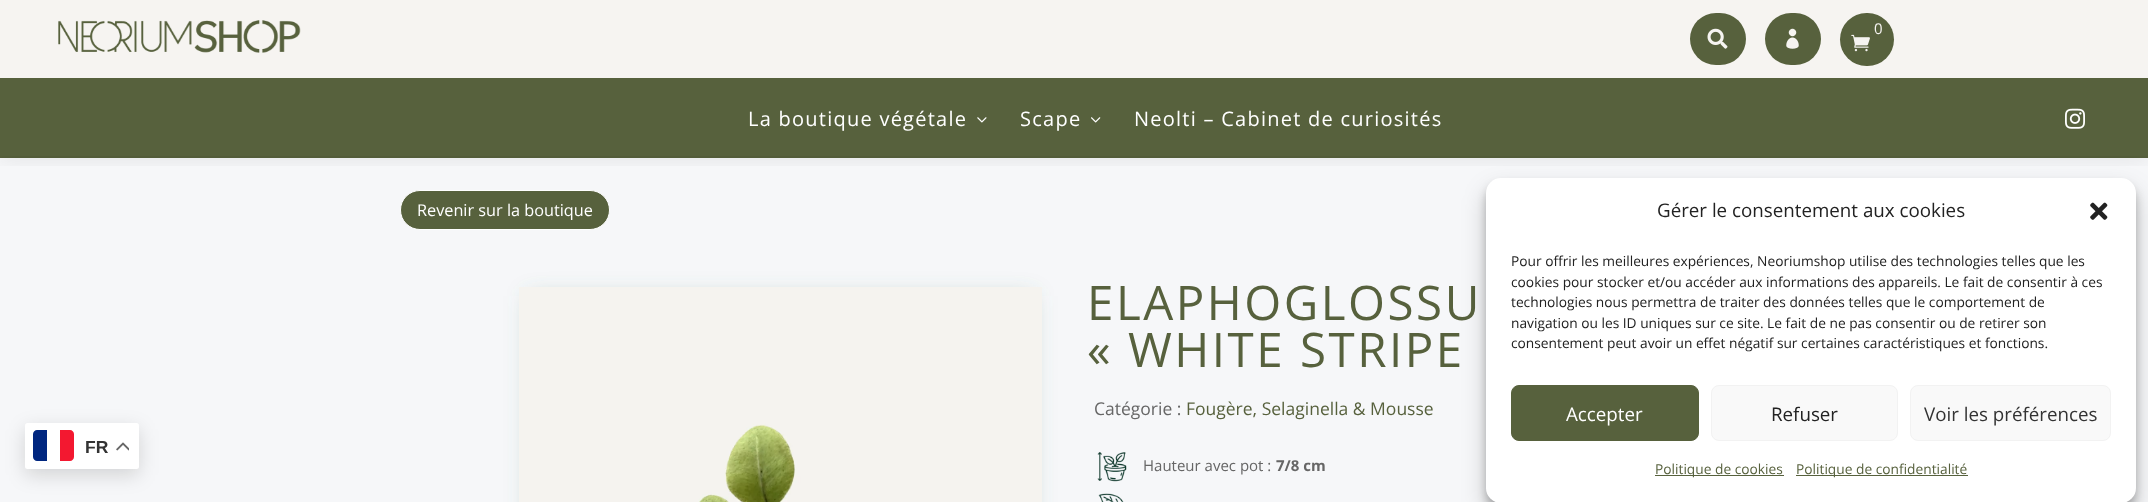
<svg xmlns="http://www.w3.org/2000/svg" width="2148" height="502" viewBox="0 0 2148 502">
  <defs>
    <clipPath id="clip1"><rect x="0" y="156" width="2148" height="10"/></clipPath>
    <filter id="blur1" x="-50%" y="-200%" width="200%" height="500%"><feGaussianBlur stdDeviation="11"/></filter>
    <filter id="blur2" x="-50%" y="-200%" width="200%" height="500%"><feGaussianBlur stdDeviation="9.5"/></filter>
    <filter id="blur3" x="-50%" y="-200%" width="200%" height="500%"><feGaussianBlur stdDeviation="4"/></filter>
    <filter id="blur4" x="-50%" y="-200%" width="200%" height="500%"><feGaussianBlur stdDeviation="12.5"/></filter>
  </defs>
  <rect width="100%" height="100%" fill="#57613d"/>
  <rect x="0" y="158" width="2148" height="344" fill="#f6f7f9"/>
  <rect x="400.5" y="190.5" width="209" height="39" rx="19.5" fill="#57613d" stroke="#ffffff"/>
  <g clip-path="url(#clip1)">
    <rect x="0" y="3" width="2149" height="156" fill="#000000" fill-opacity="0.08" filter="url(#blur1)"/>
  </g>
  <rect x="0" y="0" width="2148" height="78" fill="#f6f4f1"/>
  <image x="58" y="20" width="243" height="33" href="img1.png"/>
  <rect x="1690" y="13" width="56" height="52" rx="26" fill="#57613d"/>
  <image x="1707" y="28" width="21" height="21" href="img2.png"/>
  <rect x="1765" y="13" width="56" height="52" rx="26" fill="#57613d"/>
  <image x="1786" y="28" width="13" height="21" href="img3.png"/>
  <rect x="1840" y="13" width="54" height="53" rx="26.5" fill="#57613d"/>
  <text x="1874" y="34" font-family="Open Sans" font-size="15" fill="#f6f4f1">0</text>
  <image x="1851" y="34" width="19" height="18" href="img4.png"/>
  <text x="748" y="126" font-family="Open Sans" font-size="20" letter-spacing="1.25" fill="#ffffff">La boutique végétale</text>
  <image x="977" y="117" width="10" height="6" href="img5.png"/>
  <text x="1020" y="126" font-family="Open Sans" font-size="20" letter-spacing="1.25" fill="#ffffff">Scape</text>
  <image x="1091" y="117" width="10" height="6" href="img6.png"/>
  <text x="1134" y="126" font-family="Open Sans" font-size="20" letter-spacing="1.25" fill="#ffffff">Neolti – Cabinet de curiosités</text>
  <image x="2065" y="108" width="20" height="21" href="img7.png"/>
  <text x="417" y="216" font-family="Open Sans" font-size="16.25" fill="#ffffff">Revenir sur la boutique</text>
  <rect x="528" y="296" width="505" height="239" fill="#4f896e" fill-opacity="0.33" filter="url(#blur1)"/>
  <image x="519" y="287" width="523" height="215" href="img8.png"/>
  <text x="1087" y="320" font-family="Open Sans" font-size="47.5" letter-spacing="2.5" fill="#57613d">ELAPHOGLOSSU</text>
  <text x="1087" y="367" font-family="Open Sans" font-size="47.5" letter-spacing="2.5" fill="#57613d">« WHITE STRIPE</text>
  <text x="1094" y="415" font-family="Open Sans" font-size="17.5" fill="#666666">Catégorie :</text>
  <text x="1186" y="415" font-family="Open Sans" font-size="17.5" fill="#57613d">Fougère, Selaginella &amp; Mousse</text>
  <image x="1097" y="452" width="30" height="30" href="img9.png"/>
  <text x="1143" y="471" font-family="Open Sans" font-size="15" fill="#666666">Hauteur avec pot :</text>
  <text x="1276" y="471" font-family="Open Sans" font-size="15" font-weight="bold" fill="#666666">7/8 cm</text>
  <image x="1098" y="493" width="26" height="9" href="img10.png"/>
  <rect x="25" y="429" width="114" height="46" rx="2.5" fill="#000000" fill-opacity="0.15" filter="url(#blur2)"/>
  <rect x="25" y="423" width="114" height="46" rx="2.5" fill="#ffffff"/>
  <path d="M37 430H47V461H37C35 461 33 459 33 457V434C33 432 35 430 37 430Z" fill="#00267f"/>
  <path d="M60 430H70C72 430 74 432 74 434V457C74 459 72 461 70 461H60Z" fill="#f31830"/>
  <text x="85" y="453" font-family="Liberation Sans" font-size="17.5" font-weight="bold" fill="#333333">FR</text>
  <image x="116" y="442" width="13" height="9" href="img11.png"/>
  <rect x="1486" y="185" width="650" height="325" rx="15" fill="#000000" fill-opacity="0.23" filter="url(#blur3)"/>
  <rect x="1486" y="190" width="650" height="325" rx="15" fill="#000000" fill-opacity="0.19" filter="url(#blur4)"/>
  <rect x="1486" y="178" width="650" height="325" rx="15" fill="#ffffff"/>
  <text x="1657" y="217" font-family="Open Sans" font-size="18.75" fill="#222222">Gérer le consentement aux cookies</text>
  <image x="2090" y="202" width="18" height="18" href="img12.png"/>
  <text x="1511" y="266" font-family="Open Sans" font-size="13.75" fill="#222222">Pour offrir les meilleures expériences, Neoriumshop utilise des technologies telles que les</text>
  <text x="1511" y="287" font-family="Open Sans" font-size="13.75" fill="#222222">cookies pour stocker et/ou accéder aux informations des appareils. Le fait de consentir à ces</text>
  <text x="1511" y="307" font-family="Open Sans" font-size="13.75" fill="#222222">technologies nous permettra de traiter des données telles que le comportement de</text>
  <text x="1511" y="328" font-family="Open Sans" font-size="13.75" fill="#222222">navigation ou les ID uniques sur ce site. Le fait de ne pas consentir ou de retirer son</text>
  <text x="1511" y="348" font-family="Open Sans" font-size="13.75" fill="#222222">consentement peut avoir un effet négatif sur certaines caractéristiques et fonctions.</text>
  <rect x="1511.5" y="385.5" width="187" height="55" rx="7.5" fill="#57613d" stroke="#57613d"/>
  <text x="1566" y="421" font-family="Open Sans" font-size="18.75" fill="#ffffff">Accepter</text>
  <rect x="1711.5" y="385.5" width="186" height="55" rx="7.5" fill="#f9f9f9" stroke="#f2f2f2"/>
  <text x="1771" y="421" font-family="Open Sans" font-size="18.75" fill="#222222">Refuser</text>
  <rect x="1910.5" y="385.5" width="200" height="55" rx="7.5" fill="#f9f9f9" stroke="#f2f2f2"/>
  <text x="1924" y="421" font-family="Open Sans" font-size="18.75" fill="#333333">Voir les préférences</text>
  <rect x="1655" y="475" width="129" height="1" fill="#57613d"/>
  <text x="1655" y="474" font-family="Open Sans" font-size="13.75" fill="#57613d">Politique de cookies</text>
  <rect x="1796" y="475" width="172" height="1" fill="#57613d"/>
  <text x="1796" y="474" font-family="Open Sans" font-size="13.75" fill="#57613d">Politique de confidentialité</text>
</svg>
